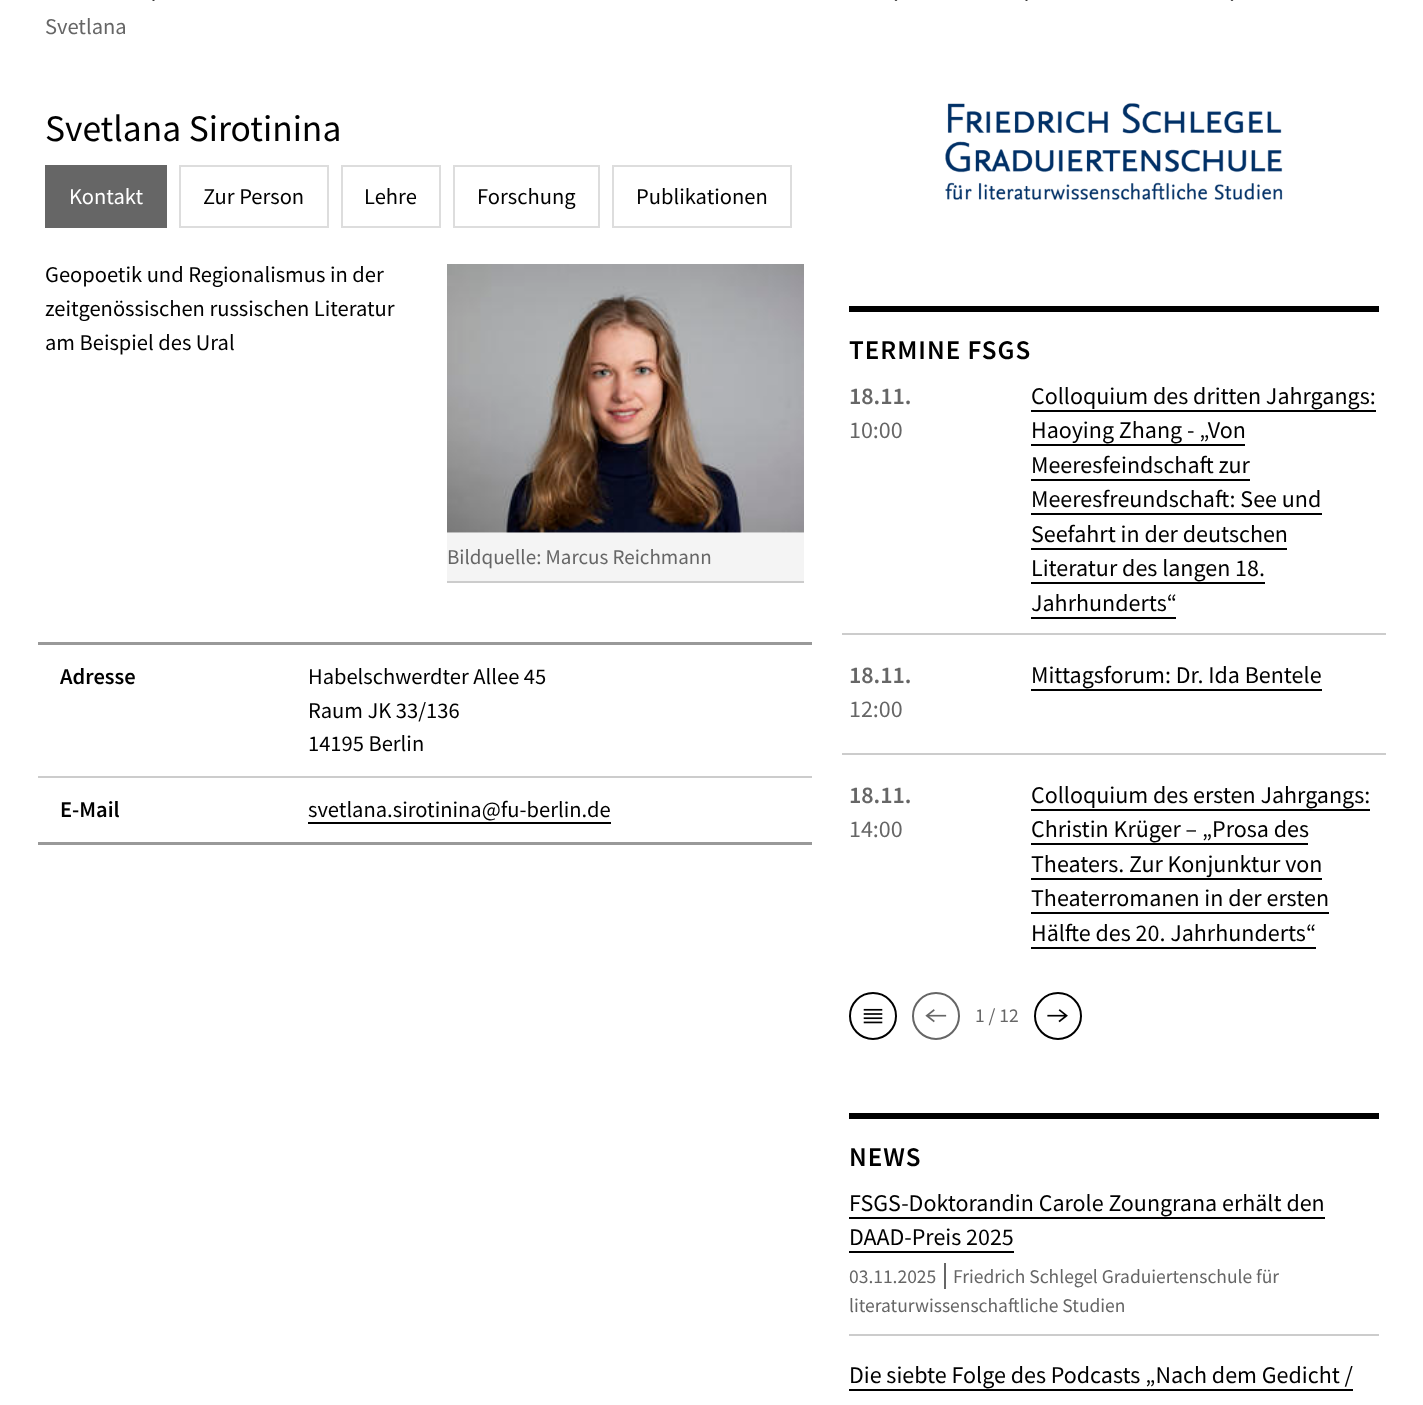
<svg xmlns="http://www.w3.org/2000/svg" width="1423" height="1405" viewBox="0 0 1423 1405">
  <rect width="100%" height="100%" fill="#ffffff"/>
  <image x="152" y="0" width="3" height="1" href="img1.png"/>
  <image x="894" y="0" width="4" height="1" href="img2.png"/>
  <image x="1025" y="0" width="3" height="1" href="img1.png"/>
  <image x="1230" y="0" width="4" height="1" href="img2.png"/>
  <text x="45" y="34" font-family="Source Sans Pro" font-size="22.5" fill="#666666">Svetlana</text>
  <text x="45" y="141" font-family="Source Sans Pro" font-size="37.5" fill="#000000">Svetlana Sirotinina</text>
  <rect x="45" y="165" width="122" height="63" fill="#666666"/>
  <text x="69" y="204" font-family="Source Sans Pro" font-size="22.5" fill="#ffffff">Kontakt</text>
  <rect x="180" y="166" width="148" height="61" fill="none" stroke="#dddddd" stroke-width="2"/>
  <text x="203" y="204" font-family="Source Sans Pro" font-size="22.5" fill="#000000">Zur Person</text>
  <rect x="342" y="166" width="98" height="61" fill="none" stroke="#dddddd" stroke-width="2"/>
  <text x="364" y="204" font-family="Source Sans Pro" font-size="22.5" fill="#000000">Lehre</text>
  <rect x="454" y="166" width="145" height="61" fill="none" stroke="#dddddd" stroke-width="2"/>
  <text x="477" y="204" font-family="Source Sans Pro" font-size="22.5" fill="#000000">Forschung</text>
  <rect x="613" y="166" width="178" height="61" fill="none" stroke="#dddddd" stroke-width="2"/>
  <text x="636" y="204" font-family="Source Sans Pro" font-size="22.5" fill="#000000">Publikationen</text>
  <text x="45" y="282" font-family="Source Sans Pro" font-size="22.5" fill="#000000">Geopoetik und Regionalismus in der</text>
  <text x="45" y="316" font-family="Source Sans Pro" font-size="22.5" fill="#000000">zeitgenössischen russischen Literatur</text>
  <text x="45" y="350" font-family="Source Sans Pro" font-size="22.5" fill="#000000">am Beispiel des Ural</text>
  <image x="447" y="264" width="357" height="269" href="img3.png"/>
  <rect x="447" y="533" width="357" height="48" fill="#f4f4f4"/>
  <rect x="447" y="581" width="357" height="2" fill="#cccccc"/>
  <text x="447" y="564" font-family="Source Sans Pro" font-size="21" fill="#666666">Bildquelle: Marcus Reichmann</text>
  <rect x="38" y="642" width="774" height="3" fill="#999999"/>
  <rect x="38" y="776" width="774" height="2" fill="#cccccc"/>
  <text x="60" y="684" font-family="Source Sans Pro" font-size="22.5" font-weight="600" fill="#000000">Adresse</text>
  <text x="308" y="684" font-family="Source Sans Pro" font-size="22.5" fill="#000000">Habelschwerdter Allee 45</text>
  <text x="308" y="718" font-family="Source Sans Pro" font-size="22.5" fill="#000000">Raum JK 33/136</text>
  <text x="308" y="751" font-family="Source Sans Pro" font-size="22.5" fill="#000000">14195 Berlin</text>
  <rect x="38" y="842" width="774" height="3" fill="#999999"/>
  <text x="60" y="817" font-family="Source Sans Pro" font-size="22.5" font-weight="600" fill="#000000">E-Mail</text>
  <text x="308" y="817" font-family="Source Sans Pro" font-size="22.5" fill="#000000">svetlana.sirotinina@fu-berlin.de</text>
  <rect x="308" y="822" width="303" height="2" fill="#000000"/>
  <image x="945" y="103" width="338" height="97" href="img4.png"/>
  <rect x="849" y="306" width="530" height="6" fill="#000000"/>
  <text x="849" y="359" font-family="Source Sans Pro" font-size="27" font-weight="600" letter-spacing="1" fill="#000000">TERMINE FSGS</text>
  <rect x="842" y="633" width="544" height="2" fill="#cccccc"/>
  <text x="849" y="404" font-family="Source Sans Pro" font-size="24" font-weight="600" fill="#666666">18.11.</text>
  <text x="849" y="438" font-family="Source Sans Pro" font-size="24" fill="#666666">10:00</text>
  <text x="1031" y="404" font-family="Source Sans Pro" font-size="24" fill="#000000">Colloquium des dritten Jahrgangs:</text>
  <rect x="1031" y="410" width="345" height="2" fill="#000000"/>
  <text x="1031" y="438" font-family="Source Sans Pro" font-size="24" fill="#000000">Haoying Zhang - „Von</text>
  <rect x="1031" y="444" width="214" height="2" fill="#000000"/>
  <text x="1031" y="473" font-family="Source Sans Pro" font-size="24" fill="#000000">Meeresfeindschaft zur</text>
  <rect x="1031" y="479" width="219" height="2" fill="#000000"/>
  <text x="1031" y="507" font-family="Source Sans Pro" font-size="24" fill="#000000">Meeresfreundschaft: See und</text>
  <rect x="1031" y="513" width="291" height="2" fill="#000000"/>
  <text x="1031" y="542" font-family="Source Sans Pro" font-size="24" fill="#000000">Seefahrt in der deutschen</text>
  <rect x="1031" y="548" width="256" height="2" fill="#000000"/>
  <text x="1031" y="576" font-family="Source Sans Pro" font-size="24" fill="#000000">Literatur des langen 18.</text>
  <rect x="1031" y="582" width="234" height="2" fill="#000000"/>
  <text x="1031" y="611" font-family="Source Sans Pro" font-size="24" fill="#000000">Jahrhunderts“</text>
  <rect x="1031" y="617" width="145" height="2" fill="#000000"/>
  <rect x="842" y="753" width="544" height="2" fill="#cccccc"/>
  <text x="849" y="683" font-family="Source Sans Pro" font-size="24" font-weight="600" fill="#666666">18.11.</text>
  <text x="849" y="717" font-family="Source Sans Pro" font-size="24" fill="#666666">12:00</text>
  <text x="1031" y="683" font-family="Source Sans Pro" font-size="24" fill="#000000">Mittagsforum: Dr. Ida Bentele</text>
  <rect x="1031" y="689" width="291" height="2" fill="#000000"/>
  <text x="849" y="803" font-family="Source Sans Pro" font-size="24" font-weight="600" fill="#666666">18.11.</text>
  <text x="849" y="837" font-family="Source Sans Pro" font-size="24" fill="#666666">14:00</text>
  <text x="1031" y="803" font-family="Source Sans Pro" font-size="24" fill="#000000">Colloquium des ersten Jahrgangs:</text>
  <rect x="1031" y="809" width="339" height="2" fill="#000000"/>
  <text x="1031" y="837" font-family="Source Sans Pro" font-size="24" fill="#000000">Christin Krüger – „Prosa des</text>
  <rect x="1031" y="843" width="277" height="2" fill="#000000"/>
  <text x="1031" y="872" font-family="Source Sans Pro" font-size="24" fill="#000000">Theaters. Zur Konjunktur von</text>
  <rect x="1031" y="878" width="291" height="2" fill="#000000"/>
  <text x="1031" y="906" font-family="Source Sans Pro" font-size="24" fill="#000000">Theaterromanen in der ersten</text>
  <rect x="1031" y="912" width="298" height="2" fill="#000000"/>
  <text x="1031" y="941" font-family="Source Sans Pro" font-size="24" fill="#000000">Hälfte des 20. Jahrhunderts“</text>
  <rect x="1031" y="947" width="285" height="2" fill="#000000"/>
  <circle cx="873" cy="1016" r="23" fill="none" stroke="#000000" stroke-width="2"/>
  <image x="863" y="1008" width="20" height="16" href="img5.png"/>
  <circle cx="936" cy="1016" r="23" fill="none" stroke="#666666" stroke-width="2"/>
  <image x="925" y="1009" width="22" height="14" href="img6.png"/>
  <text x="975" y="1022" font-family="Source Sans Pro" font-size="19.5" fill="#666666">1 / 12</text>
  <circle cx="1058" cy="1016" r="23" fill="none" stroke="#000000" stroke-width="2"/>
  <image x="1047" y="1009" width="21" height="14" href="img7.png"/>
  <rect x="849" y="1113" width="530" height="6" fill="#000000"/>
  <text x="849" y="1166" font-family="Source Sans Pro" font-size="27" font-weight="600" letter-spacing="1" fill="#000000">NEWS</text>
  <rect x="849" y="1334" width="530" height="2" fill="#cccccc"/>
  <text x="849" y="1211" font-family="Source Sans Pro" font-size="24" fill="#000000">FSGS-Doktorandin Carole Zoungrana erhält den</text>
  <rect x="849" y="1217" width="476" height="2" fill="#000000"/>
  <text x="849" y="1245" font-family="Source Sans Pro" font-size="24" fill="#000000">DAAD-Preis 2025</text>
  <rect x="849" y="1251" width="165" height="2" fill="#000000"/>
  <text x="849" y="1283" font-family="Source Sans Pro" font-size="19.5" fill="#666666">03.11.2025</text>
  <text x="953" y="1283" font-family="Source Sans Pro" font-size="19.5" fill="#666666">Friedrich Schlegel Graduiertenschule für</text>
  <rect x="944" y="1263" width="2" height="26" fill="#666666"/>
  <text x="849" y="1312" font-family="Source Sans Pro" font-size="19.5" fill="#666666">literaturwissenschaftliche Studien</text>
  <text x="849" y="1383" font-family="Source Sans Pro" font-size="24" fill="#000000">Die siebte Folge des Podcasts „Nach dem Gedicht /</text>
  <rect x="849" y="1389" width="504" height="2" fill="#000000"/>
</svg>
